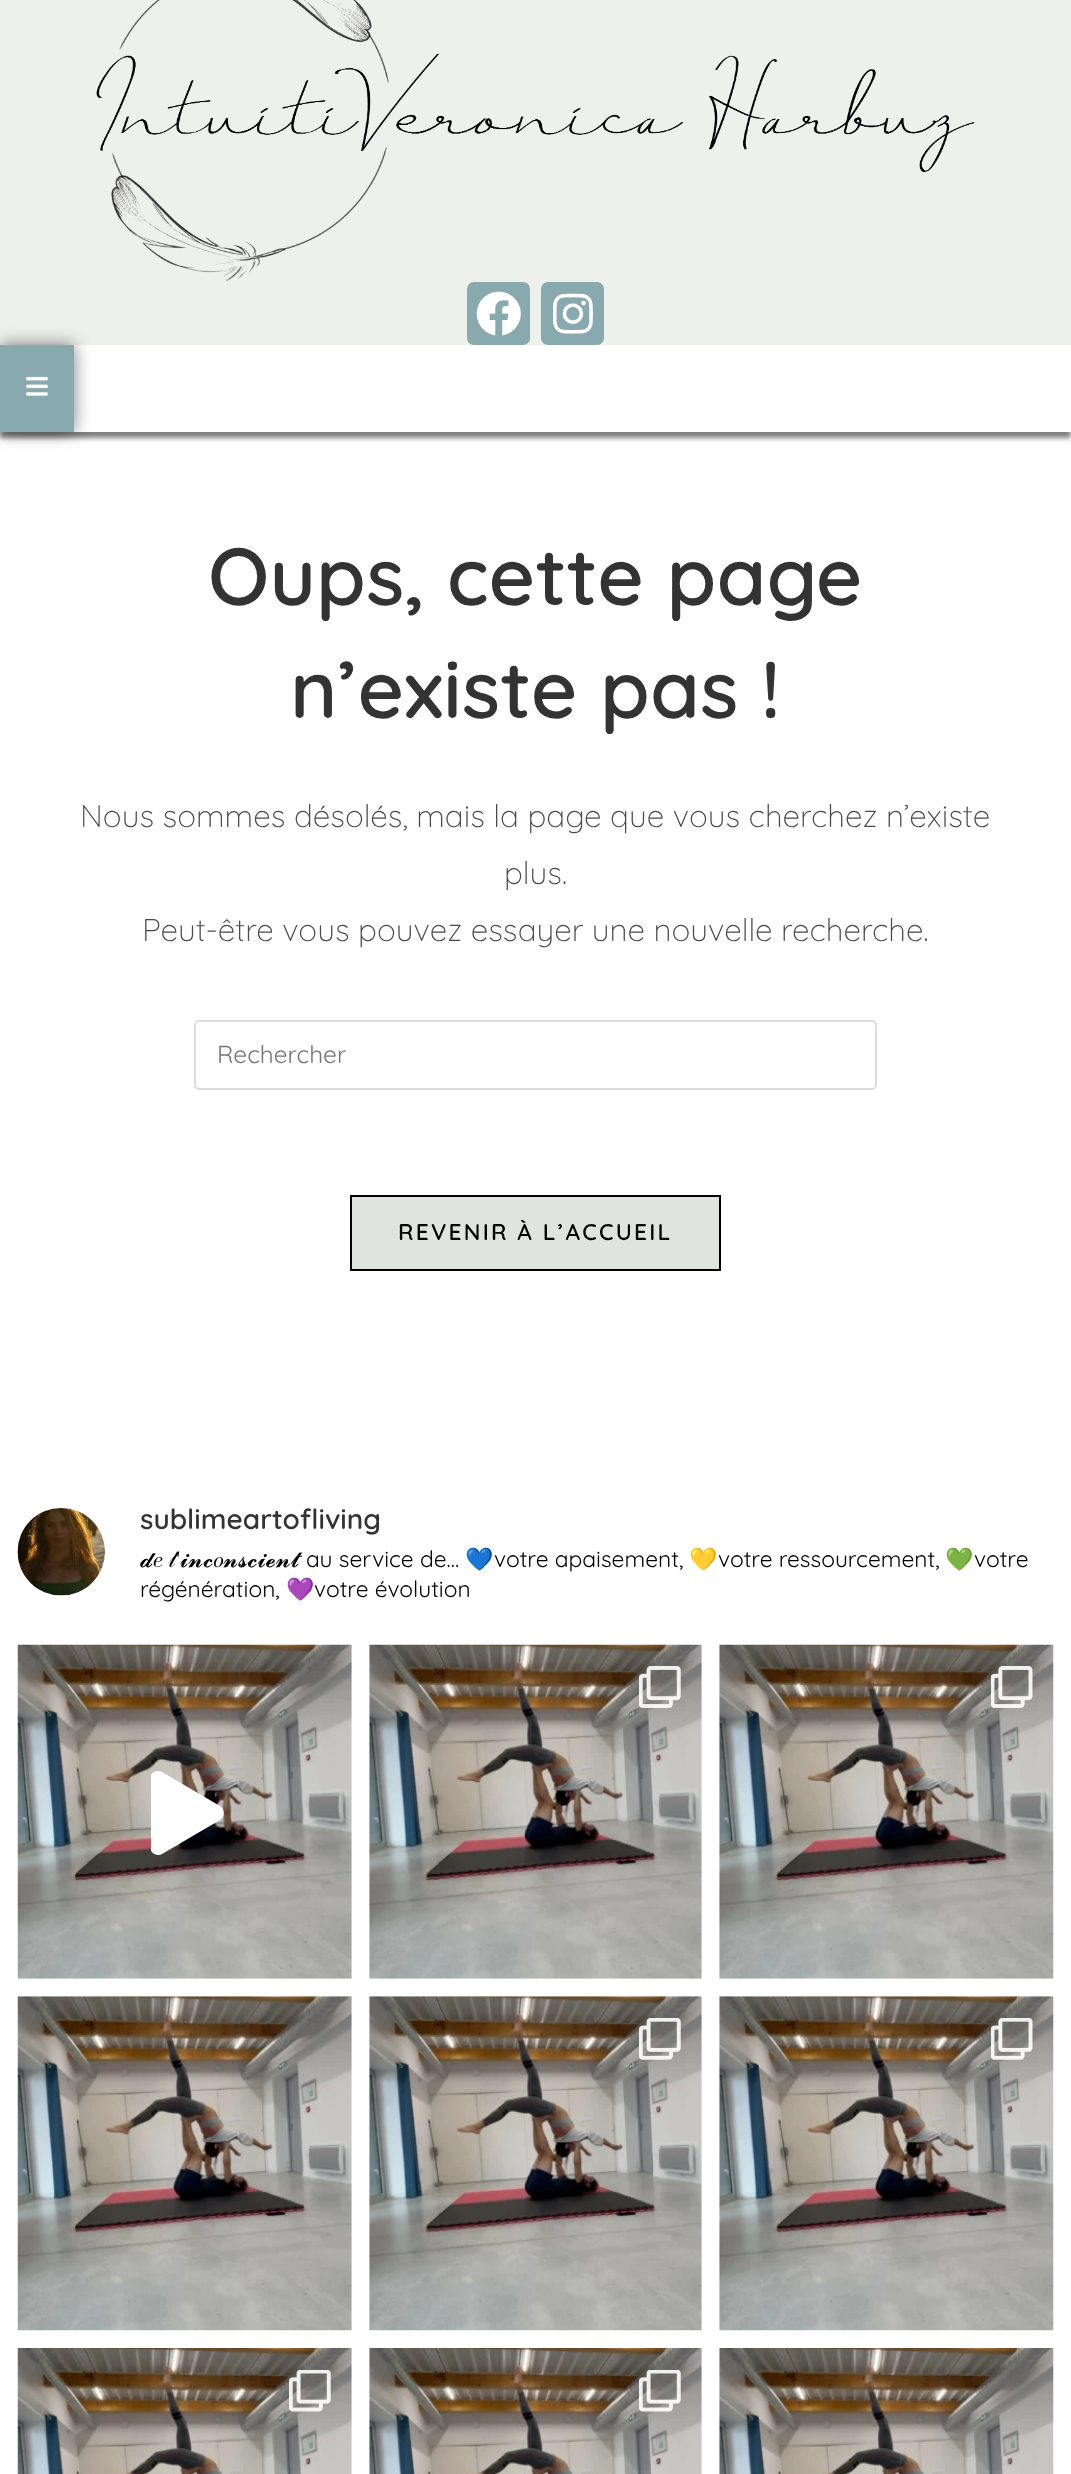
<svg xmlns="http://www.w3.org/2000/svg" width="1071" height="2474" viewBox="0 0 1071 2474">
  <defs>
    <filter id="blur1" x="-50%" y="-200%" width="200%" height="500%"><feGaussianBlur stdDeviation="2.5"/></filter>
    <filter id="blur2" x="-50%" y="-200%" width="200%" height="500%"><feGaussianBlur stdDeviation="9"/></filter>
    <clipPath id="clip1"><rect x="151" y="1771" width="73" height="84"/></clipPath>
  </defs>
  <rect width="100%" height="100%" fill="#ffffff"/>
  <rect x="0" y="0" width="1071" height="345" fill="#eef0ec"/>
  <image x="96" y="0" width="879" height="282" href="img1.png"/>
  <rect x="467" y="282" width="63" height="63" rx="7" fill="#88a9ad"/>
  <image x="476" y="291" width="45" height="45" href="img2.png"/>
  <rect x="541" y="282" width="63" height="63" rx="7" fill="#88a9ad"/>
  <image x="553" y="293" width="40" height="41" href="img3.png"/>
  <rect x="0" y="350" width="1071" height="88" fill="#000000" fill-opacity="0.5" filter="url(#blur1)"/>
  <rect x="74" y="345" width="997" height="87" fill="#ffffff"/>
  <rect x="0" y="345" width="74" height="87" fill="#000000" fill-opacity="0.5" filter="url(#blur2)"/>
  <rect x="0" y="345" width="74" height="87" fill="#88a9ad"/>
  <image x="26" y="376" width="22" height="20" href="img4.png"/>
  <text x="208" y="605" font-family="Quicksand" font-size="80.5" font-weight="600" fill="#333333">Oups, cette page</text>
  <text x="290" y="718" font-family="Quicksand" font-size="80.5" font-weight="600" fill="#333333">n’existe pas !</text>
  <text x="80" y="827" font-family="Quicksand" font-size="31.5" font-weight="300" fill="#4a4a4a">Nous sommes désolés, mais la page que vous cherchez n’existe</text>
  <text x="504" y="884" font-family="Quicksand" font-size="31.5" font-weight="300" fill="#4a4a4a">plus.</text>
  <text x="142" y="941" font-family="Quicksand" font-size="31.5" font-weight="300" fill="#4a4a4a">Peut-être vous pouvez essayer une nouvelle recherche.</text>
  <rect x="195" y="1021" width="681" height="68" rx="4" fill="none" stroke="#dddddd" stroke-width="2"/>
  <text x="217" y="1063" font-family="'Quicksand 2'" font-size="24.5" font-weight="300" fill="#757575">Rechercher</text>
  <rect x="351" y="1196" width="369" height="74" fill="#e1e3e0" stroke="#000000" stroke-width="2"/>
  <text x="398" y="1240" font-family="Quicksand" font-size="22.75" font-weight="600" letter-spacing="2.25" fill="#000000">REVENIR À L’ACCUEIL</text>
  <image x="17" y="1508" width="88" height="88" href="img5.png"/>
  <text x="140" y="1529" font-family="Quicksand" font-size="28" font-weight="600" fill="#333333">sublimeartofliving</text>
  <text x="140" y="1567" font-family="FreeSerif" font-size="22.75" fill="#000000">𝓭𝑒 𝓁'𝓲𝓷𝓬𝑜𝓷𝓼𝓬𝓲𝓮𝓷𝓽</text>
  <text x="306" y="1567" font-family="'Quicksand 2'" font-size="22.75" font-weight="300" fill="#000000">au service de…</text>
  <text x="465" y="1567" font-family="Noto Color Emoji" font-size="22.75" fill="#000000">💙</text>
  <text x="494" y="1567" font-family="'Quicksand 2'" font-size="22.75" font-weight="300" fill="#000000">votre apaisement,</text>
  <text x="689" y="1567" font-family="Noto Color Emoji" font-size="22.75" fill="#000000">💛</text>
  <text x="718" y="1567" font-family="'Quicksand 2'" font-size="22.75" font-weight="300" fill="#000000">votre ressourcement,</text>
  <text x="945" y="1567" font-family="Noto Color Emoji" font-size="22.75" fill="#000000">💚</text>
  <text x="974" y="1567" font-family="'Quicksand 2'" font-size="22.75" font-weight="300" fill="#000000">votre</text>
  <text x="140" y="1597" font-family="'Quicksand 2'" font-size="22.75" font-weight="300" fill="#000000">régénération,</text>
  <text x="286" y="1597" font-family="Noto Color Emoji" font-size="22.75" fill="#000000">💜</text>
  <text x="314" y="1597" font-family="'Quicksand 2'" font-size="22.75" font-weight="300" fill="#000000">votre évolution</text>
  <image x="17" y="1644" width="335" height="335" href="img6.png"/>
  <g clip-path="url(#clip1)">
    <path d="M220 1806L162 1772C158 1769 150 1772 150 1779V1847C150 1853 157 1857 162 1854L220 1820C225 1817 225 1809 220 1806Z" fill="#ffffff"/>
  </g>
  <image x="369" y="1644" width="333" height="335" href="img7.png"/>
  <image x="639" y="1666" width="42" height="42" href="img8.png"/>
  <image x="719" y="1644" width="335" height="335" href="img9.png"/>
  <image x="991" y="1666" width="42" height="42" href="img10.png"/>
  <image x="17" y="1996" width="335" height="335" href="img11.png"/>
  <image x="369" y="1996" width="333" height="335" href="img12.png"/>
  <image x="639" y="2018" width="42" height="42" href="img13.png"/>
  <image x="719" y="1996" width="335" height="335" href="img14.png"/>
  <image x="991" y="2018" width="42" height="42" href="img15.png"/>
  <image x="17" y="2348" width="335" height="126" href="img16.png"/>
  <image x="289" y="2370" width="42" height="42" href="img17.png"/>
  <image x="369" y="2348" width="333" height="126" href="img18.png"/>
  <image x="639" y="2370" width="42" height="42" href="img19.png"/>
  <image x="719" y="2348" width="335" height="126" href="img20.png"/>
</svg>
